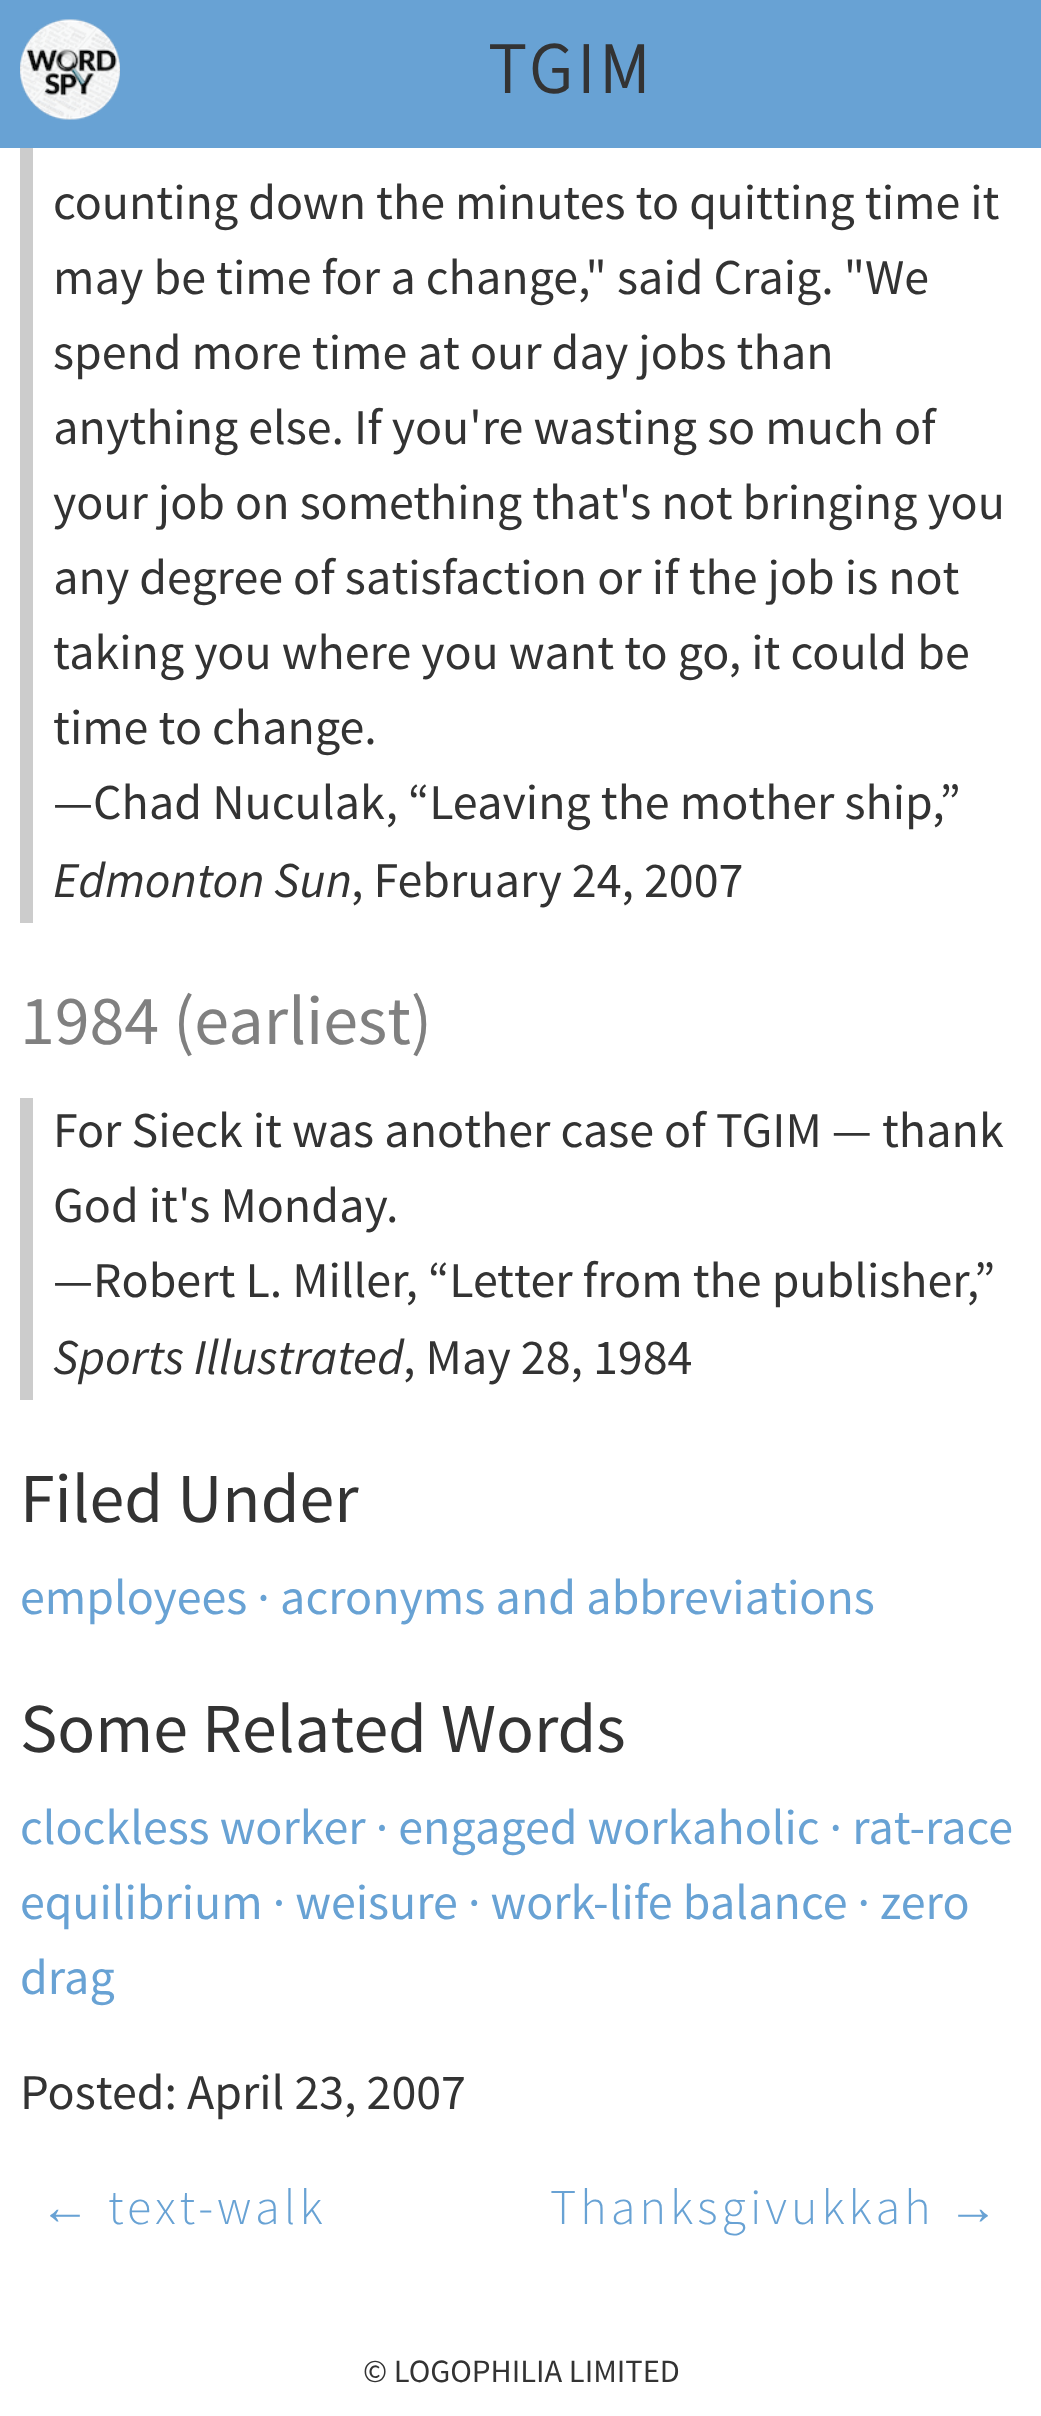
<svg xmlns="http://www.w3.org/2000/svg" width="1041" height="2416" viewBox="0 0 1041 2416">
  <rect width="100%" height="100%" fill="#ffffff"/>
  <rect x="0" y="0" width="1041" height="148" fill="#68a2d4"/>
  <image x="20" y="19" width="100" height="101" href="img1.png"/>
  <text x="488" y="93" font-family="Source Sans Pro" font-size="71" font-weight="bold" letter-spacing="5" fill="#333333">TGIM</text>
  <rect x="20" y="148" width="13" height="775" fill="#cccccc"/>
  <text x="53" y="219" font-family="Source Sans Pro" font-size="50" fill="#333333">counting down the minutes to quitting time it</text>
  <text x="53" y="294" font-family="Source Sans Pro" font-size="50" fill="#333333">may be time for a change," said Craig. "We</text>
  <text x="53" y="369" font-family="Source Sans Pro" font-size="50" fill="#333333">spend more time at our day jobs than</text>
  <text x="53" y="444" font-family="Source Sans Pro" font-size="50" fill="#333333">anything else. If you're wasting so much of</text>
  <text x="53" y="519" font-family="Source Sans Pro" font-size="50" fill="#333333">your job on something that's not bringing you</text>
  <text x="53" y="594" font-family="Source Sans Pro" font-size="50" fill="#333333">any degree of satisfaction or if the job is not</text>
  <text x="53" y="669" font-family="Source Sans Pro" font-size="50" fill="#333333">taking you where you want to go, it could be</text>
  <text x="53" y="744" font-family="Source Sans Pro" font-size="50" fill="#333333">time to change.</text>
  <text x="53" y="819" font-family="Source Sans Pro" font-size="50" fill="#333333">—Chad Nuculak, “Leaving the mother ship,”</text>
  <text x="53" y="897" font-family="Source Sans Pro" font-size="50" font-style="italic" fill="#333333">Edmonton Sun</text>
  <text x="351" y="897" font-family="Source Sans Pro" font-size="50" fill="#333333">, February 24, 2007</text>
  <text x="20" y="1044" font-family="Source Sans Pro" font-size="70" fill="#808080">1984 (earliest)</text>
  <rect x="20" y="1098" width="13" height="302" fill="#cccccc"/>
  <text x="53" y="1147" font-family="Source Sans Pro" font-size="50" fill="#333333">For Sieck it was another case of TGIM — thank</text>
  <text x="53" y="1222" font-family="Source Sans Pro" font-size="50" fill="#333333">God it's Monday.</text>
  <text x="53" y="1297" font-family="Source Sans Pro" font-size="50" fill="#333333">—Robert L. Miller, “Letter from the publisher,”</text>
  <text x="53" y="1374" font-family="Source Sans Pro" font-size="50" font-style="italic" fill="#333333">Sports Illustrated</text>
  <text x="403" y="1374" font-family="Source Sans Pro" font-size="50" fill="#333333">, May 28, 1984</text>
  <text x="20" y="1522" font-family="Source Sans Pro" font-size="70" fill="#333333">Filed Under</text>
  <text x="20" y="1614" font-family="Source Sans Pro" font-size="50" fill="#68a2d4">employees · acronyms and abbreviations</text>
  <text x="20" y="1752" font-family="Source Sans Pro" font-size="70" fill="#333333">Some Related Words</text>
  <text x="20" y="1844" font-family="Source Sans Pro" font-size="50" fill="#68a2d4">clockless worker · engaged workaholic · rat-race</text>
  <text x="20" y="1919" font-family="Source Sans Pro" font-size="50" fill="#68a2d4">equilibrium · weisure · work-life balance · zero</text>
  <text x="20" y="1994" font-family="Source Sans Pro" font-size="50" fill="#68a2d4">drag</text>
  <text x="20" y="2109" font-family="Source Sans Pro" font-size="50" fill="#333333">Posted: April 23, 2007</text>
  <text x="40" y="2224" font-family="Liberation Sans" font-size="50" letter-spacing="4" fill="#68a2d4">←</text>
  <text x="108" y="2224" font-family="Source Sans Pro" font-size="50" font-weight="300" letter-spacing="4" fill="#68a2d4">text-walk</text>
  <text x="550" y="2224" font-family="Source Sans Pro" font-size="50" font-weight="300" letter-spacing="4" fill="#68a2d4">Thanksgivukkah</text>
  <text x="948" y="2224" font-family="Liberation Sans" font-size="50" letter-spacing="4" fill="#68a2d4">→</text>
  <text x="363" y="2382" font-family="Source Sans Pro" font-size="32.5" fill="#333333">© LOGOPHILIA LIMITED</text>
</svg>
